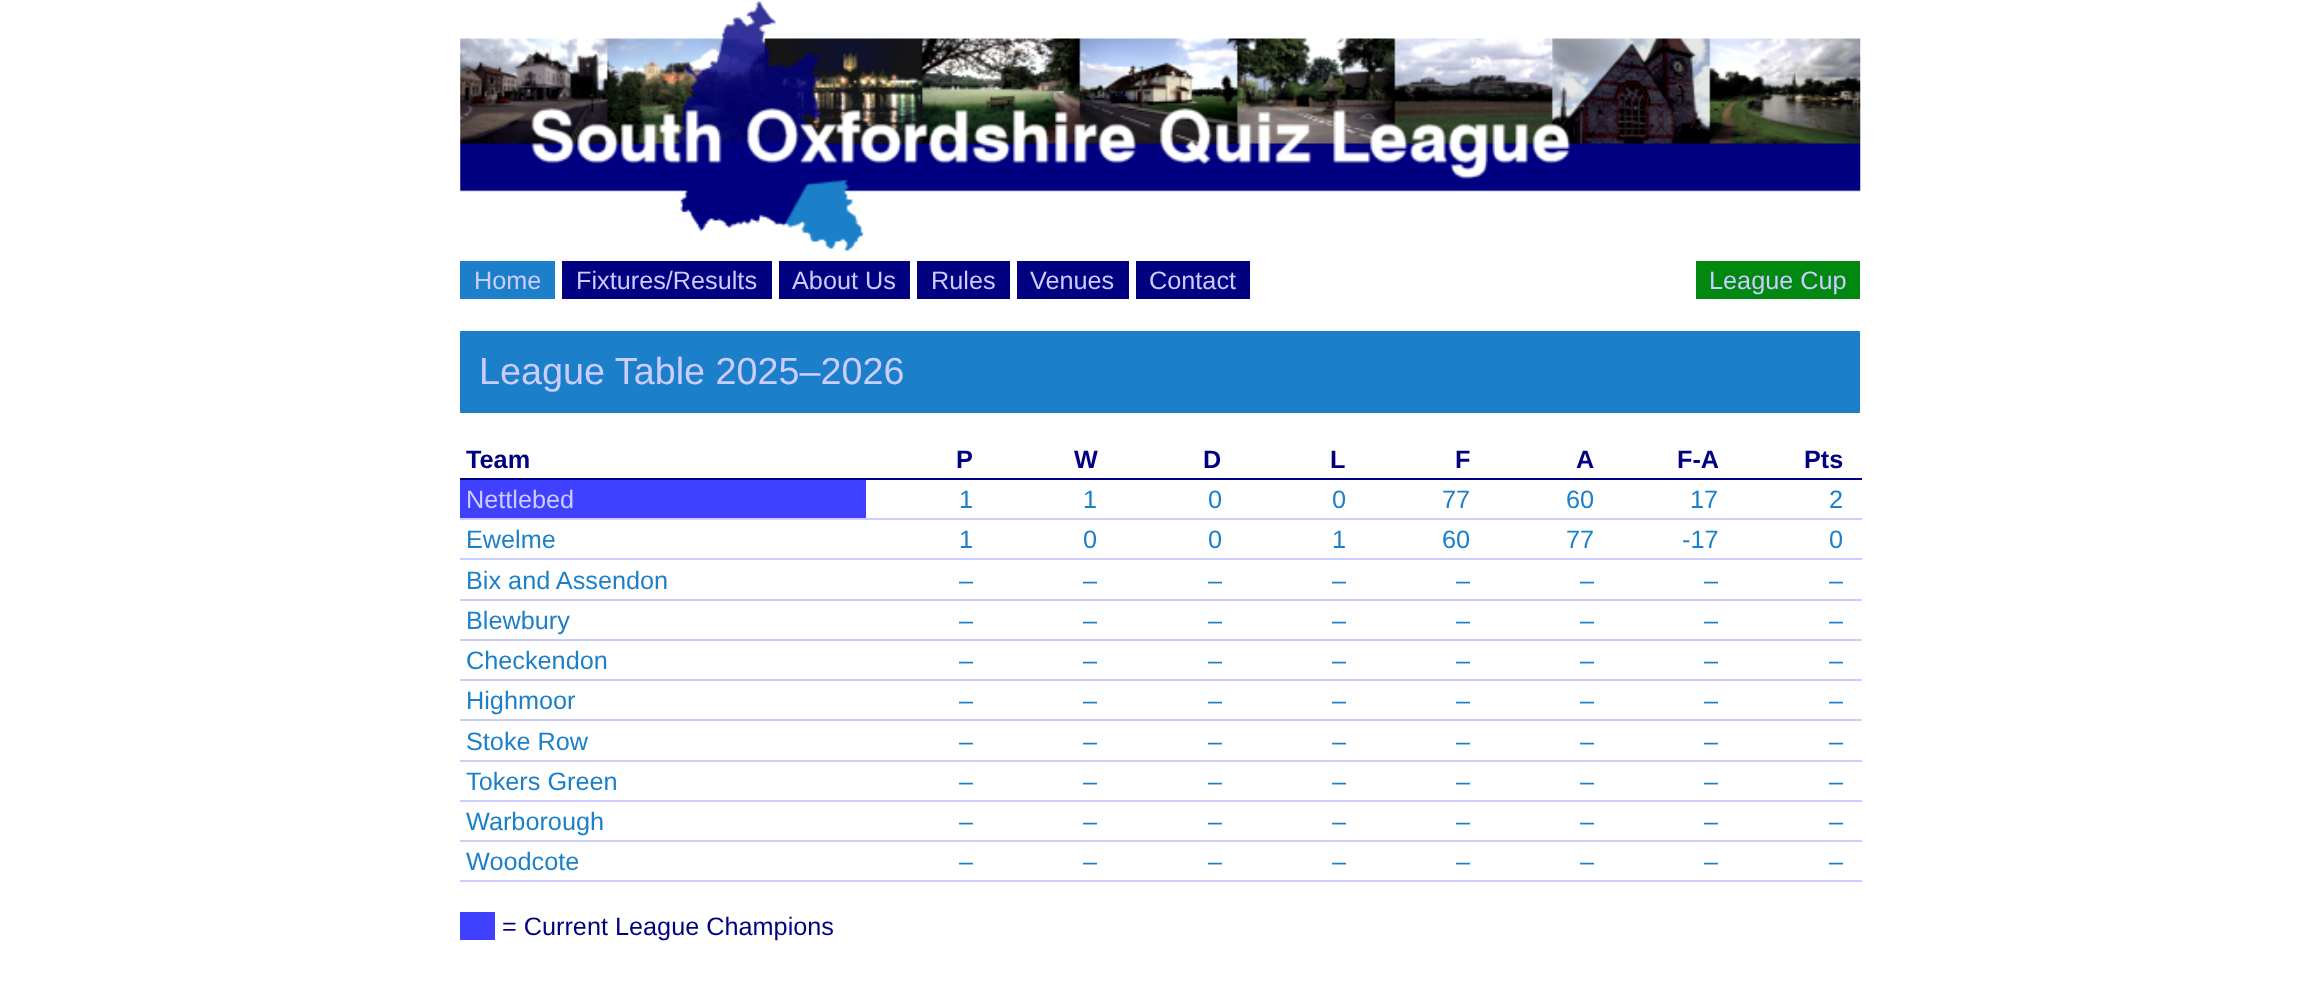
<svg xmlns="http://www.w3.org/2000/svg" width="2320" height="997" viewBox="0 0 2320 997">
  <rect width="100%" height="100%" fill="#ffffff"/>
  <image x="460" y="1" width="1401" height="250" href="img1.png"/>
  <rect x="460" y="261" width="95" height="38" fill="#1b80c9"/>
  <text x="474" y="289" font-family="Liberation Sans" font-size="25.25" fill="#ccccff">Home</text>
  <rect x="562" y="261" width="210" height="38" fill="#000080"/>
  <text x="576" y="289" font-family="Liberation Sans" font-size="25.25" fill="#ccccff">Fixtures/Results</text>
  <rect x="779" y="261" width="131" height="38" fill="#000080"/>
  <text x="792" y="289" font-family="Liberation Sans" font-size="25.25" fill="#ccccff">About Us</text>
  <rect x="917" y="261" width="93" height="38" fill="#000080"/>
  <text x="931" y="289" font-family="Liberation Sans" font-size="25.25" fill="#ccccff">Rules</text>
  <rect x="1017" y="261" width="112" height="38" fill="#000080"/>
  <text x="1030" y="289" font-family="Liberation Sans" font-size="25.25" fill="#ccccff">Venues</text>
  <rect x="1136" y="261" width="114" height="38" fill="#000080"/>
  <text x="1149" y="289" font-family="Liberation Sans" font-size="25.25" fill="#ccccff">Contact</text>
  <rect x="1696" y="261" width="164" height="38" fill="#008811"/>
  <text x="1709" y="289" font-family="Liberation Sans" font-size="25.25" fill="#ccccff">League Cup</text>
  <rect x="460" y="331" width="1400" height="82" fill="#1b80c9"/>
  <text x="479" y="384" font-family="Liberation Sans" font-size="37.75" fill="#ccccff">League Table 2025–2026</text>
  <rect x="460" y="478" width="1402" height="2" fill="#000080"/>
  <text x="466" y="468" font-family="Liberation Sans" font-size="25.25" font-weight="bold" fill="#000080">Team</text>
  <text x="956" y="468" font-family="Liberation Sans" font-size="25.25" font-weight="bold" fill="#000080">P</text>
  <text x="1074" y="468" font-family="Liberation Sans" font-size="25.25" font-weight="bold" fill="#000080">W</text>
  <text x="1203" y="468" font-family="Liberation Sans" font-size="25.25" font-weight="bold" fill="#000080">D</text>
  <text x="1330" y="468" font-family="Liberation Sans" font-size="25.25" font-weight="bold" fill="#000080">L</text>
  <text x="1455" y="468" font-family="Liberation Sans" font-size="25.25" font-weight="bold" fill="#000080">F</text>
  <text x="1576" y="468" font-family="Liberation Sans" font-size="25.25" font-weight="bold" fill="#000080">A</text>
  <text x="1677" y="468" font-family="Liberation Sans" font-size="25.25" font-weight="bold" fill="#000080">F-A</text>
  <text x="1804" y="468" font-family="Liberation Sans" font-size="25.25" font-weight="bold" fill="#000080">Pts</text>
  <rect x="460" y="480" width="406" height="38" fill="#4040ff"/>
  <text x="466" y="508" font-family="Liberation Sans" font-size="25.25" fill="#ccccff">Nettlebed</text>
  <text x="959" y="508" font-family="Liberation Sans" font-size="25.25" fill="#1b80c9">1</text>
  <text x="1083" y="508" font-family="Liberation Sans" font-size="25.25" fill="#1b80c9">1</text>
  <text x="1208" y="508" font-family="Liberation Sans" font-size="25.25" fill="#1b80c9">0</text>
  <text x="1332" y="508" font-family="Liberation Sans" font-size="25.25" fill="#1b80c9">0</text>
  <text x="1442" y="508" font-family="Liberation Sans" font-size="25.25" fill="#1b80c9">77</text>
  <text x="1566" y="508" font-family="Liberation Sans" font-size="25.25" fill="#1b80c9">60</text>
  <text x="1690" y="508" font-family="Liberation Sans" font-size="25.25" fill="#1b80c9">17</text>
  <rect x="460" y="518" width="1402" height="2" fill="#ccccff"/>
  <text x="1829" y="508" font-family="Liberation Sans" font-size="25.25" fill="#1b80c9">2</text>
  <text x="466" y="548" font-family="Liberation Sans" font-size="25.25" fill="#1b80c9">Ewelme</text>
  <text x="959" y="548" font-family="Liberation Sans" font-size="25.25" fill="#1b80c9">1</text>
  <text x="1083" y="548" font-family="Liberation Sans" font-size="25.25" fill="#1b80c9">0</text>
  <text x="1208" y="548" font-family="Liberation Sans" font-size="25.25" fill="#1b80c9">0</text>
  <text x="1332" y="548" font-family="Liberation Sans" font-size="25.25" fill="#1b80c9">1</text>
  <text x="1442" y="548" font-family="Liberation Sans" font-size="25.25" fill="#1b80c9">60</text>
  <text x="1566" y="548" font-family="Liberation Sans" font-size="25.25" fill="#1b80c9">77</text>
  <text x="1682" y="548" font-family="Liberation Sans" font-size="25.25" fill="#1b80c9">-17</text>
  <rect x="460" y="558" width="1402" height="2" fill="#ccccff"/>
  <text x="1829" y="548" font-family="Liberation Sans" font-size="25.25" fill="#1b80c9">0</text>
  <text x="466" y="589" font-family="Liberation Sans" font-size="25.25" fill="#1b80c9">Bix and Assendon</text>
  <text x="959" y="589" font-family="Liberation Sans" font-size="25.25" fill="#1b80c9">–</text>
  <text x="1083" y="589" font-family="Liberation Sans" font-size="25.25" fill="#1b80c9">–</text>
  <text x="1208" y="589" font-family="Liberation Sans" font-size="25.25" fill="#1b80c9">–</text>
  <text x="1332" y="589" font-family="Liberation Sans" font-size="25.25" fill="#1b80c9">–</text>
  <text x="1456" y="589" font-family="Liberation Sans" font-size="25.25" fill="#1b80c9">–</text>
  <text x="1580" y="589" font-family="Liberation Sans" font-size="25.25" fill="#1b80c9">–</text>
  <text x="1704" y="589" font-family="Liberation Sans" font-size="25.25" fill="#1b80c9">–</text>
  <rect x="460" y="599" width="1402" height="2" fill="#ccccff"/>
  <text x="1829" y="589" font-family="Liberation Sans" font-size="25.25" fill="#1b80c9">–</text>
  <text x="466" y="629" font-family="Liberation Sans" font-size="25.25" fill="#1b80c9">Blewbury</text>
  <text x="959" y="629" font-family="Liberation Sans" font-size="25.25" fill="#1b80c9">–</text>
  <text x="1083" y="629" font-family="Liberation Sans" font-size="25.25" fill="#1b80c9">–</text>
  <text x="1208" y="629" font-family="Liberation Sans" font-size="25.25" fill="#1b80c9">–</text>
  <text x="1332" y="629" font-family="Liberation Sans" font-size="25.25" fill="#1b80c9">–</text>
  <text x="1456" y="629" font-family="Liberation Sans" font-size="25.25" fill="#1b80c9">–</text>
  <text x="1580" y="629" font-family="Liberation Sans" font-size="25.25" fill="#1b80c9">–</text>
  <text x="1704" y="629" font-family="Liberation Sans" font-size="25.25" fill="#1b80c9">–</text>
  <rect x="460" y="639" width="1402" height="2" fill="#ccccff"/>
  <text x="1829" y="629" font-family="Liberation Sans" font-size="25.25" fill="#1b80c9">–</text>
  <text x="466" y="669" font-family="Liberation Sans" font-size="25.25" fill="#1b80c9">Checkendon</text>
  <text x="959" y="669" font-family="Liberation Sans" font-size="25.25" fill="#1b80c9">–</text>
  <text x="1083" y="669" font-family="Liberation Sans" font-size="25.25" fill="#1b80c9">–</text>
  <text x="1208" y="669" font-family="Liberation Sans" font-size="25.25" fill="#1b80c9">–</text>
  <text x="1332" y="669" font-family="Liberation Sans" font-size="25.25" fill="#1b80c9">–</text>
  <text x="1456" y="669" font-family="Liberation Sans" font-size="25.25" fill="#1b80c9">–</text>
  <text x="1580" y="669" font-family="Liberation Sans" font-size="25.25" fill="#1b80c9">–</text>
  <text x="1704" y="669" font-family="Liberation Sans" font-size="25.25" fill="#1b80c9">–</text>
  <rect x="460" y="679" width="1402" height="2" fill="#ccccff"/>
  <text x="1829" y="669" font-family="Liberation Sans" font-size="25.25" fill="#1b80c9">–</text>
  <text x="466" y="709" font-family="Liberation Sans" font-size="25.25" fill="#1b80c9">Highmoor</text>
  <text x="959" y="709" font-family="Liberation Sans" font-size="25.25" fill="#1b80c9">–</text>
  <text x="1083" y="709" font-family="Liberation Sans" font-size="25.25" fill="#1b80c9">–</text>
  <text x="1208" y="709" font-family="Liberation Sans" font-size="25.25" fill="#1b80c9">–</text>
  <text x="1332" y="709" font-family="Liberation Sans" font-size="25.25" fill="#1b80c9">–</text>
  <text x="1456" y="709" font-family="Liberation Sans" font-size="25.25" fill="#1b80c9">–</text>
  <text x="1580" y="709" font-family="Liberation Sans" font-size="25.25" fill="#1b80c9">–</text>
  <text x="1704" y="709" font-family="Liberation Sans" font-size="25.25" fill="#1b80c9">–</text>
  <rect x="460" y="719" width="1402" height="2" fill="#ccccff"/>
  <text x="1829" y="709" font-family="Liberation Sans" font-size="25.25" fill="#1b80c9">–</text>
  <text x="466" y="750" font-family="Liberation Sans" font-size="25.25" fill="#1b80c9">Stoke Row</text>
  <text x="959" y="750" font-family="Liberation Sans" font-size="25.25" fill="#1b80c9">–</text>
  <text x="1083" y="750" font-family="Liberation Sans" font-size="25.25" fill="#1b80c9">–</text>
  <text x="1208" y="750" font-family="Liberation Sans" font-size="25.25" fill="#1b80c9">–</text>
  <text x="1332" y="750" font-family="Liberation Sans" font-size="25.25" fill="#1b80c9">–</text>
  <text x="1456" y="750" font-family="Liberation Sans" font-size="25.25" fill="#1b80c9">–</text>
  <text x="1580" y="750" font-family="Liberation Sans" font-size="25.25" fill="#1b80c9">–</text>
  <text x="1704" y="750" font-family="Liberation Sans" font-size="25.25" fill="#1b80c9">–</text>
  <rect x="460" y="760" width="1402" height="2" fill="#ccccff"/>
  <text x="1829" y="750" font-family="Liberation Sans" font-size="25.25" fill="#1b80c9">–</text>
  <text x="466" y="790" font-family="Liberation Sans" font-size="25.25" fill="#1b80c9">Tokers Green</text>
  <text x="959" y="790" font-family="Liberation Sans" font-size="25.25" fill="#1b80c9">–</text>
  <text x="1083" y="790" font-family="Liberation Sans" font-size="25.25" fill="#1b80c9">–</text>
  <text x="1208" y="790" font-family="Liberation Sans" font-size="25.25" fill="#1b80c9">–</text>
  <text x="1332" y="790" font-family="Liberation Sans" font-size="25.25" fill="#1b80c9">–</text>
  <text x="1456" y="790" font-family="Liberation Sans" font-size="25.25" fill="#1b80c9">–</text>
  <text x="1580" y="790" font-family="Liberation Sans" font-size="25.25" fill="#1b80c9">–</text>
  <text x="1704" y="790" font-family="Liberation Sans" font-size="25.25" fill="#1b80c9">–</text>
  <rect x="460" y="800" width="1402" height="2" fill="#ccccff"/>
  <text x="1829" y="790" font-family="Liberation Sans" font-size="25.25" fill="#1b80c9">–</text>
  <text x="466" y="830" font-family="Liberation Sans" font-size="25.25" fill="#1b80c9">Warborough</text>
  <text x="959" y="830" font-family="Liberation Sans" font-size="25.25" fill="#1b80c9">–</text>
  <text x="1083" y="830" font-family="Liberation Sans" font-size="25.25" fill="#1b80c9">–</text>
  <text x="1208" y="830" font-family="Liberation Sans" font-size="25.25" fill="#1b80c9">–</text>
  <text x="1332" y="830" font-family="Liberation Sans" font-size="25.25" fill="#1b80c9">–</text>
  <text x="1456" y="830" font-family="Liberation Sans" font-size="25.25" fill="#1b80c9">–</text>
  <text x="1580" y="830" font-family="Liberation Sans" font-size="25.25" fill="#1b80c9">–</text>
  <text x="1704" y="830" font-family="Liberation Sans" font-size="25.25" fill="#1b80c9">–</text>
  <rect x="460" y="840" width="1402" height="2" fill="#ccccff"/>
  <text x="1829" y="830" font-family="Liberation Sans" font-size="25.25" fill="#1b80c9">–</text>
  <text x="466" y="870" font-family="Liberation Sans" font-size="25.25" fill="#1b80c9">Woodcote</text>
  <text x="959" y="870" font-family="Liberation Sans" font-size="25.25" fill="#1b80c9">–</text>
  <text x="1083" y="870" font-family="Liberation Sans" font-size="25.25" fill="#1b80c9">–</text>
  <text x="1208" y="870" font-family="Liberation Sans" font-size="25.25" fill="#1b80c9">–</text>
  <text x="1332" y="870" font-family="Liberation Sans" font-size="25.25" fill="#1b80c9">–</text>
  <text x="1456" y="870" font-family="Liberation Sans" font-size="25.25" fill="#1b80c9">–</text>
  <text x="1580" y="870" font-family="Liberation Sans" font-size="25.25" fill="#1b80c9">–</text>
  <text x="1704" y="870" font-family="Liberation Sans" font-size="25.25" fill="#1b80c9">–</text>
  <rect x="460" y="880" width="1402" height="2" fill="#ccccff"/>
  <text x="1829" y="870" font-family="Liberation Sans" font-size="25.25" fill="#1b80c9">–</text>
  <rect x="460" y="912" width="35" height="28" fill="#4040ff"/>
  <text x="502" y="935" font-family="Liberation Sans" font-size="25.25" fill="#000080">= Current League Champions</text>
</svg>
